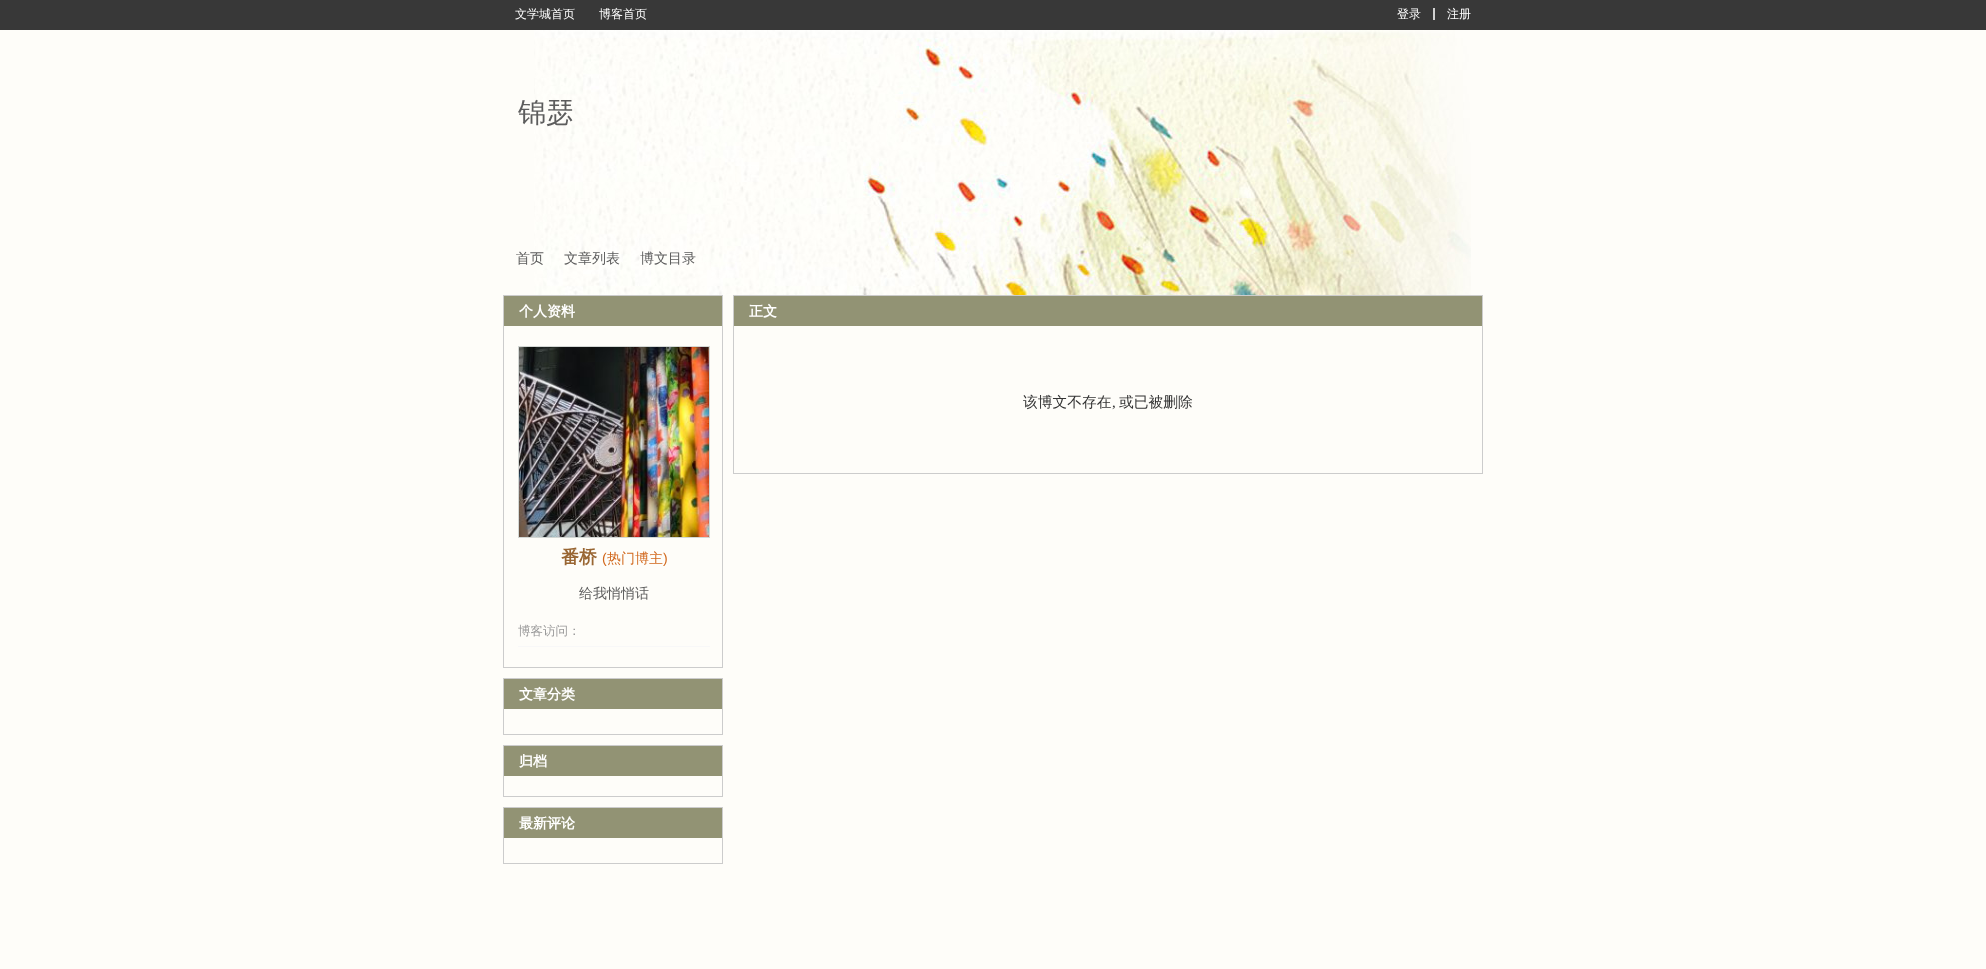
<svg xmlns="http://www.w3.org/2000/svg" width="1986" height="969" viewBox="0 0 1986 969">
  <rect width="100%" height="100%" fill="#fefdf9"/>
  <rect x="0" y="0" width="1986" height="30" fill="#383838"/>
  <text x="515" y="18" font-family="WenQuanYi Zen Hei" font-size="12" font-weight="500" fill="#ffffff">文学城首页</text>
  <text x="599" y="18" font-family="WenQuanYi Zen Hei" font-size="12" font-weight="500" fill="#ffffff">博客首页</text>
  <text x="1397" y="18" font-family="WenQuanYi Zen Hei" font-size="12" font-weight="500" fill="#ffffff">登录</text>
  <rect x="1433" y="8" width="2" height="12" fill="#d1d1d1"/>
  <text x="1447" y="18" font-family="WenQuanYi Zen Hei" font-size="12" font-weight="500" fill="#ffffff">注册</text>
  <image x="534" y="30" width="937" height="265" href="img1.png"/>
  <text x="518" y="122" font-family="WenQuanYi Zen Hei" font-size="28" font-weight="500" fill="#5d5d5d">锦瑟</text>
  <text x="516" y="263" font-family="WenQuanYi Zen Hei" font-size="14" font-weight="500" fill="#5d5d5d">首页</text>
  <text x="564" y="263" font-family="WenQuanYi Zen Hei" font-size="14" font-weight="500" fill="#5d5d5d">文章列表</text>
  <text x="640" y="263" font-family="WenQuanYi Zen Hei" font-size="14" font-weight="500" fill="#5d5d5d">博文目录</text>
  <rect x="503.5" y="295.5" width="219" height="372" fill="none" stroke="#cccccc"/>
  <rect x="504" y="296" width="218" height="30" fill="#929374"/>
  <text x="519" y="316" font-family="WenQuanYi Zen Hei" font-size="14" font-weight="bold" fill="#ffffff">个人资料</text>
  <rect x="518.5" y="346.5" width="191" height="191" fill="none" stroke="#d3d7d4"/>
  <image x="519" y="347" width="190" height="190" href="img2.png"/>
  <text x="561" y="563" font-family="WenQuanYi Zen Hei" font-size="18" font-weight="bold" fill="#996633">番桥</text>
  <text x="602" y="563" font-family="Liberation Sans" font-size="14" fill="#d2691e">(</text>
  <text x="607" y="563" font-family="WenQuanYi Zen Hei" font-size="14" font-weight="500" fill="#d2691e">热门博主</text>
  <text x="663" y="563" font-family="Liberation Sans" font-size="14" fill="#d2691e">)</text>
  <text x="579" y="598" font-family="WenQuanYi Zen Hei" font-size="14" font-weight="500" fill="#5d5d5d">给我悄悄话</text>
  <rect x="518" y="646" width="192" height="1" fill="#f8f8f8"/>
  <text x="518" y="635" font-family="WenQuanYi Zen Hei" font-size="12.5" font-weight="500" fill="#999999">博客访问：</text>
  <rect x="503.5" y="678.5" width="219" height="56" fill="none" stroke="#cccccc"/>
  <rect x="504" y="679" width="218" height="30" fill="#929374"/>
  <text x="519" y="699" font-family="WenQuanYi Zen Hei" font-size="14" font-weight="bold" fill="#ffffff">文章分类</text>
  <rect x="503.5" y="745.5" width="219" height="51" fill="none" stroke="#cccccc"/>
  <rect x="504" y="746" width="218" height="30" fill="#929374"/>
  <text x="519" y="766" font-family="WenQuanYi Zen Hei" font-size="14" font-weight="bold" fill="#ffffff">归档</text>
  <rect x="503.5" y="807.5" width="219" height="56" fill="none" stroke="#cccccc"/>
  <rect x="504" y="808" width="218" height="30" fill="#929374"/>
  <text x="519" y="828" font-family="WenQuanYi Zen Hei" font-size="14" font-weight="bold" fill="#ffffff">最新评论</text>
  <rect x="733.5" y="295.5" width="749" height="178" fill="none" stroke="#cccccc"/>
  <rect x="734" y="296" width="748" height="30" fill="#929374"/>
  <text x="749" y="316" font-family="WenQuanYi Zen Hei" font-size="14" font-weight="bold" fill="#ffffff">正文</text>
  <text x="1023" y="407" font-family="WenQuanYi Zen Hei" font-size="14.75" font-weight="500" fill="#333333">该博文不存在</text>
  <text x="1112" y="407" font-family="Liberation Serif" font-size="14.75" fill="#333333">,</text>
  <text x="1119" y="407" font-family="WenQuanYi Zen Hei" font-size="14.75" font-weight="500" fill="#333333">或已被删除</text>
</svg>
